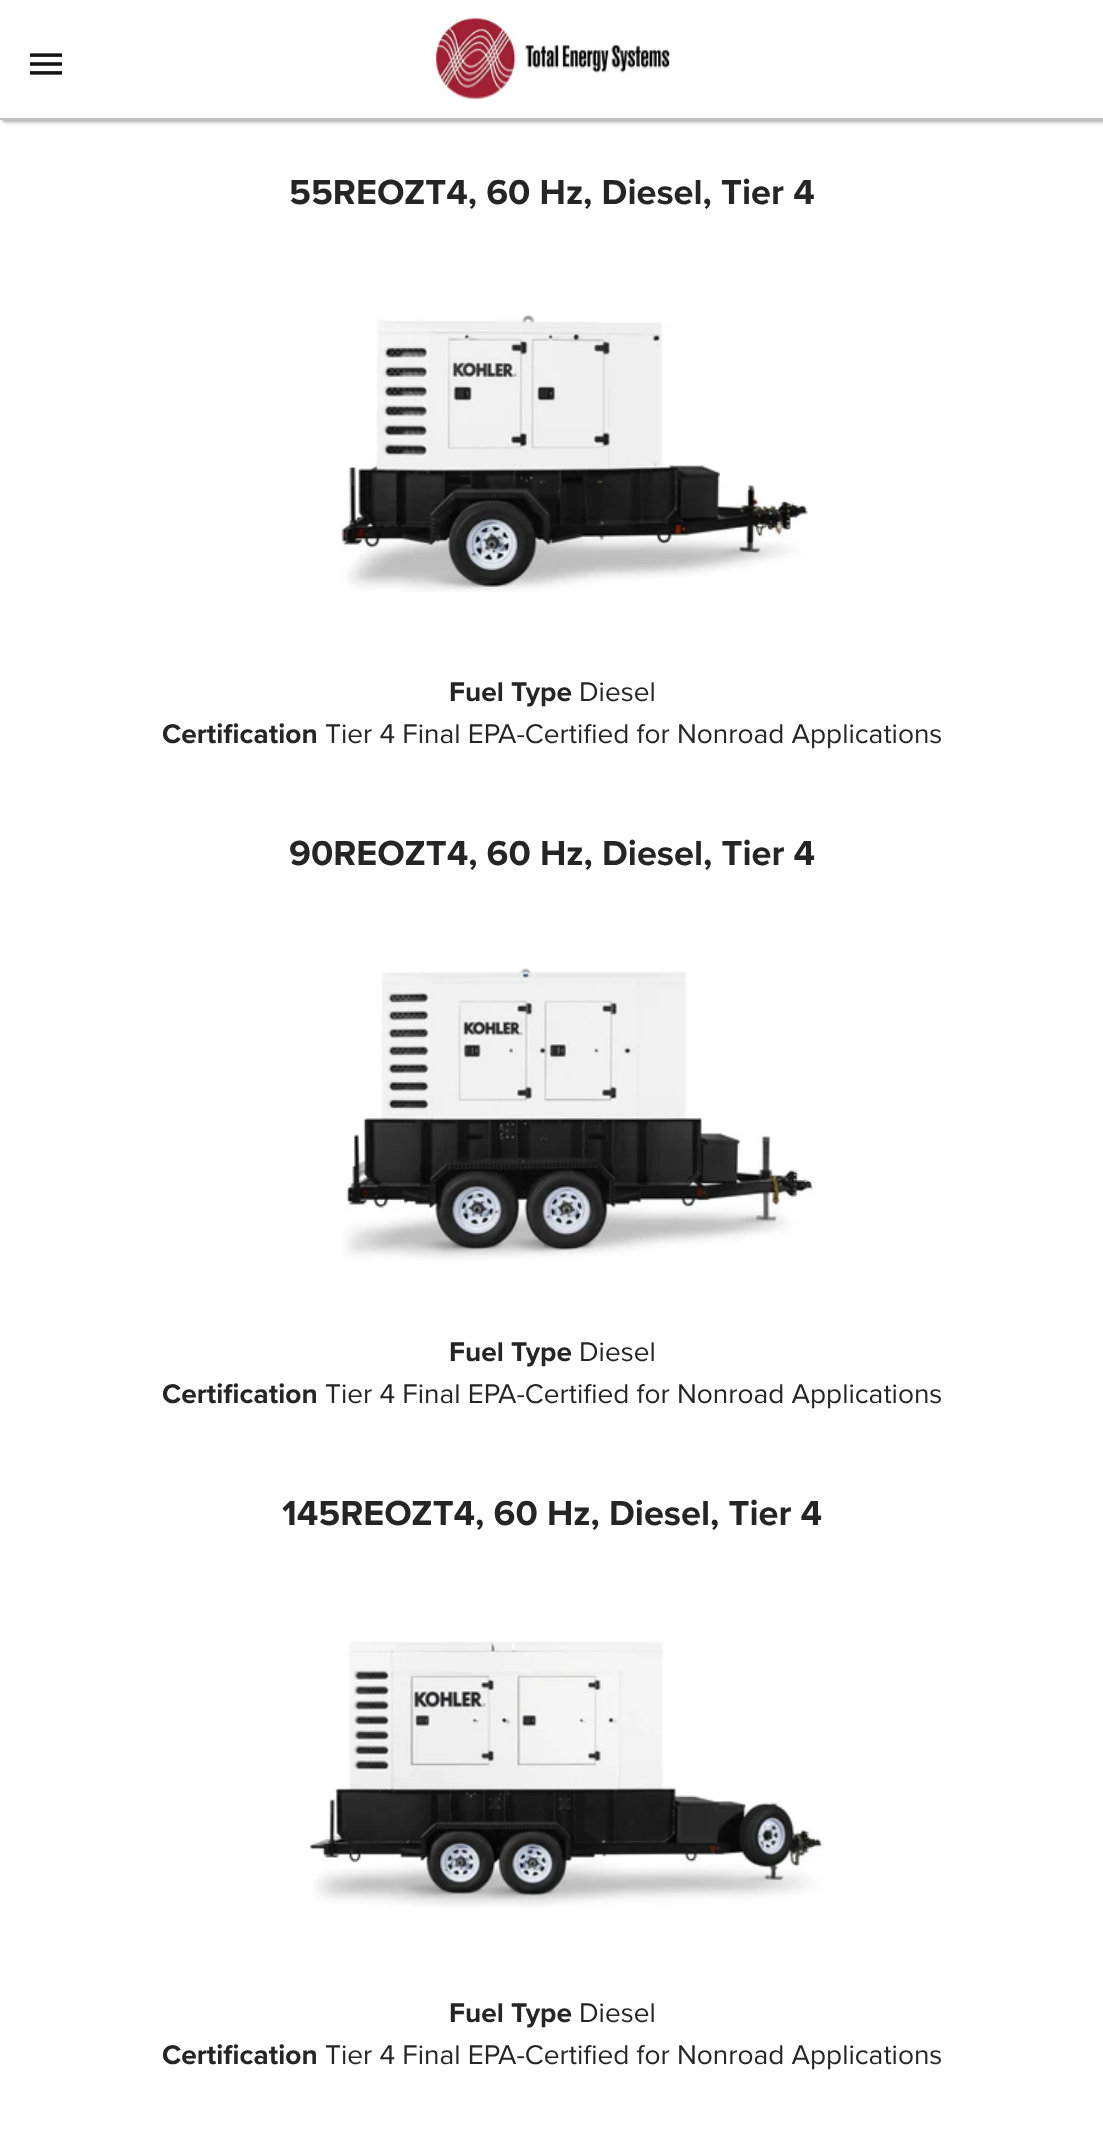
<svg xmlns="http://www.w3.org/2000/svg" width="1103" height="2139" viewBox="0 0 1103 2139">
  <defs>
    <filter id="blur1" x="-50%" y="-200%" width="200%" height="500%"><feGaussianBlur stdDeviation="2"/></filter>
    <filter id="blur2" x="-50%" y="-200%" width="200%" height="500%"><feGaussianBlur stdDeviation="1"/></filter>
  </defs>
  <rect width="100%" height="100%" fill="#ffffff"/>
  <rect x="4" y="4" width="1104" height="120" fill="#000000" fill-opacity="0.1" filter="url(#blur1)"/>
  <rect x="2" y="2" width="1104" height="120" fill="#000000" fill-opacity="0.2" filter="url(#blur2)"/>
  <rect x="0" y="0" width="1103" height="118" fill="#ffffff"/>
  <rect x="0" y="118" width="1103" height="2" fill="#bfbfbf"/>
  <image x="30" y="53" width="32" height="22" href="img1.png"/>
  <image x="429" y="16" width="241" height="85" href="img2.png"/>
  <text x="289" y="204" font-family="Proxima Nova" font-size="36" font-weight="bold" fill="#252526">55REOZT4, 60 Hz, Diesel, Tier 4</text>
  <image x="341" y="314" width="467" height="278" href="img3.png"/>
  <text x="449" y="701" font-family="Proxima Nova" font-size="28" font-weight="bold" fill="#252526">Fuel Type</text>
  <text x="579" y="701" font-family="Proxima Nova" font-size="28" fill="#252526">Diesel</text>
  <text x="162" y="743" font-family="Proxima Nova" font-size="28" font-weight="bold" fill="#252526">Certification</text>
  <text x="325" y="743" font-family="Proxima Nova" font-size="28" fill="#252526">Tier 4 Final EPA-Certified for Nonroad Applications</text>
  <text x="289" y="865" font-family="Proxima Nova" font-size="36" font-weight="bold" fill="#252526">90REOZT4, 60 Hz, Diesel, Tier 4</text>
  <image x="343" y="968" width="471" height="293" href="img4.png"/>
  <text x="449" y="1361" font-family="Proxima Nova" font-size="28" font-weight="bold" fill="#252526">Fuel Type</text>
  <text x="579" y="1361" font-family="Proxima Nova" font-size="28" fill="#252526">Diesel</text>
  <text x="162" y="1403" font-family="Proxima Nova" font-size="28" font-weight="bold" fill="#252526">Certification</text>
  <text x="325" y="1403" font-family="Proxima Nova" font-size="28" fill="#252526">Tier 4 Final EPA-Certified for Nonroad Applications</text>
  <text x="282" y="1525" font-family="Proxima Nova" font-size="36" font-weight="bold" fill="#252526">145REOZT4, 60 Hz, Diesel, Tier 4</text>
  <image x="310" y="1641" width="513" height="267" href="img5.png"/>
  <text x="449" y="2022" font-family="Proxima Nova" font-size="28" font-weight="bold" fill="#252526">Fuel Type</text>
  <text x="579" y="2022" font-family="Proxima Nova" font-size="28" fill="#252526">Diesel</text>
  <text x="162" y="2064" font-family="Proxima Nova" font-size="28" font-weight="bold" fill="#252526">Certification</text>
  <text x="325" y="2064" font-family="Proxima Nova" font-size="28" fill="#252526">Tier 4 Final EPA-Certified for Nonroad Applications</text>
</svg>
